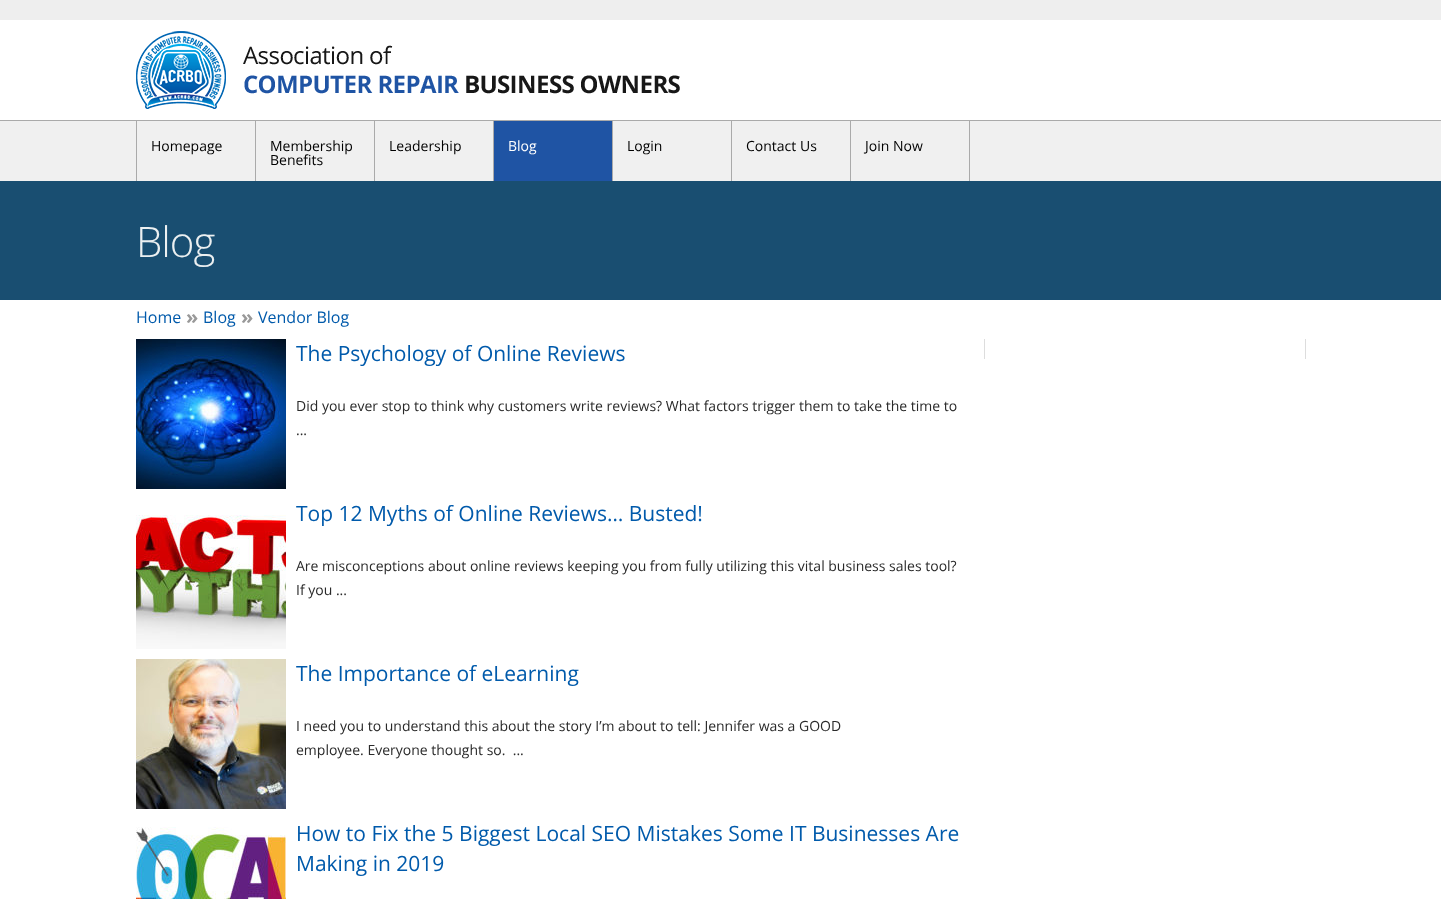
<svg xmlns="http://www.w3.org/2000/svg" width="1441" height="899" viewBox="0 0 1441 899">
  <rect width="100%" height="100%" fill="#ffffff"/>
  <rect x="0" y="0" width="1441" height="20" fill="#eeeeee"/>
  <image x="136" y="31" width="544" height="78" href="img1.png"/>
  <rect x="0" y="121" width="1441" height="60" fill="#f0f0f0"/>
  <rect x="0" y="120" width="1441" height="1" fill="#aaaaaa"/>
  <rect x="255" y="121" width="1" height="60" fill="#aaaaaa"/>
  <rect x="136" y="121" width="1" height="60" fill="#aaaaaa"/>
  <text x="151" y="151" font-family="Open Sans" font-size="14" fill="#000000">Homepage</text>
  <rect x="374" y="121" width="1" height="60" fill="#aaaaaa"/>
  <text x="270" y="151" font-family="Open Sans" font-size="14" fill="#000000">Membership</text>
  <text x="270" y="165" font-family="Open Sans" font-size="14" fill="#000000">Benefits</text>
  <rect x="493" y="121" width="1" height="60" fill="#aaaaaa"/>
  <text x="389" y="151" font-family="Open Sans" font-size="14" fill="#000000">Leadership</text>
  <rect x="612" y="121" width="1" height="60" fill="#aaaaaa"/>
  <rect x="494" y="121" width="118" height="60" fill="#1f54a4"/>
  <text x="508" y="151" font-family="Open Sans" font-size="14" fill="#ffffff">Blog</text>
  <rect x="731" y="121" width="1" height="60" fill="#aaaaaa"/>
  <text x="627" y="151" font-family="Open Sans" font-size="14" fill="#000000">Login</text>
  <rect x="850" y="121" width="1" height="60" fill="#aaaaaa"/>
  <text x="746" y="151" font-family="Open Sans" font-size="14" fill="#000000">Contact Us</text>
  <rect x="969" y="121" width="1" height="60" fill="#aaaaaa"/>
  <text x="865" y="151" font-family="Open Sans" font-size="14" fill="#000000">Join Now</text>
  <rect x="0" y="181" width="1441" height="119" fill="#194e71"/>
  <text x="136" y="257" font-family="Open Sans" font-size="42" font-weight="300" letter-spacing="-1" fill="#ecf0f1">Blog</text>
  <text x="136" y="323" font-family="Open Sans" font-size="16" fill="#005aab">Home</text>
  <text x="186" y="324" font-family="Open Sans" font-size="20" font-weight="bold" fill="#999999">»</text>
  <text x="203" y="323" font-family="Open Sans" font-size="16" fill="#005aab">Blog</text>
  <text x="241" y="324" font-family="Open Sans" font-size="20" font-weight="bold" fill="#999999">»</text>
  <text x="258" y="323" font-family="Open Sans" font-size="16" fill="#005aab">Vendor Blog</text>
  <image x="136" y="339" width="150" height="150" href="img2.png"/>
  <text x="296" y="361" font-family="Open Sans" font-size="21" fill="#005aab">The Psychology of Online Reviews</text>
  <text x="296" y="411" font-family="Open Sans" font-size="14" fill="#2a2a2a">Did you ever stop to think why customers write reviews? What factors trigger them to take the time to</text>
  <text x="296" y="435" font-family="Open Sans" font-size="14" fill="#2a2a2a">...</text>
  <image x="136" y="515" width="150" height="134" href="img3.png"/>
  <text x="296" y="521" font-family="Open Sans" font-size="21" fill="#005aab">Top 12 Myths of Online Reviews… Busted!</text>
  <text x="296" y="571" font-family="Open Sans" font-size="14" fill="#2a2a2a">Are misconceptions about online reviews keeping you from fully utilizing this vital business sales tool?</text>
  <text x="296" y="595" font-family="Open Sans" font-size="14" fill="#2a2a2a">If you ...</text>
  <image x="136" y="659" width="150" height="150" href="img4.png"/>
  <text x="296" y="681" font-family="Open Sans" font-size="21" fill="#005aab">The Importance of eLearning</text>
  <text x="296" y="731" font-family="Open Sans" font-size="14" fill="#2a2a2a">I need you to understand this about the story I’m about to tell: Jennifer was a GOOD</text>
  <text x="296" y="755" font-family="Open Sans" font-size="14" fill="#2a2a2a" xml:space="preserve">employee. Everyone thought so.  ...</text>
  <image x="136" y="827" width="150" height="72" href="img5.png"/>
  <text x="296" y="841" font-family="Open Sans" font-size="21" fill="#005aab">How to Fix the 5 Biggest Local SEO Mistakes Some IT Businesses Are</text>
  <text x="296" y="871" font-family="Open Sans" font-size="21" fill="#005aab">Making in 2019</text>
  <rect x="1305" y="339" width="1" height="20" fill="#dddddd"/>
  <rect x="984" y="339" width="1" height="20" fill="#dddddd"/>
</svg>
